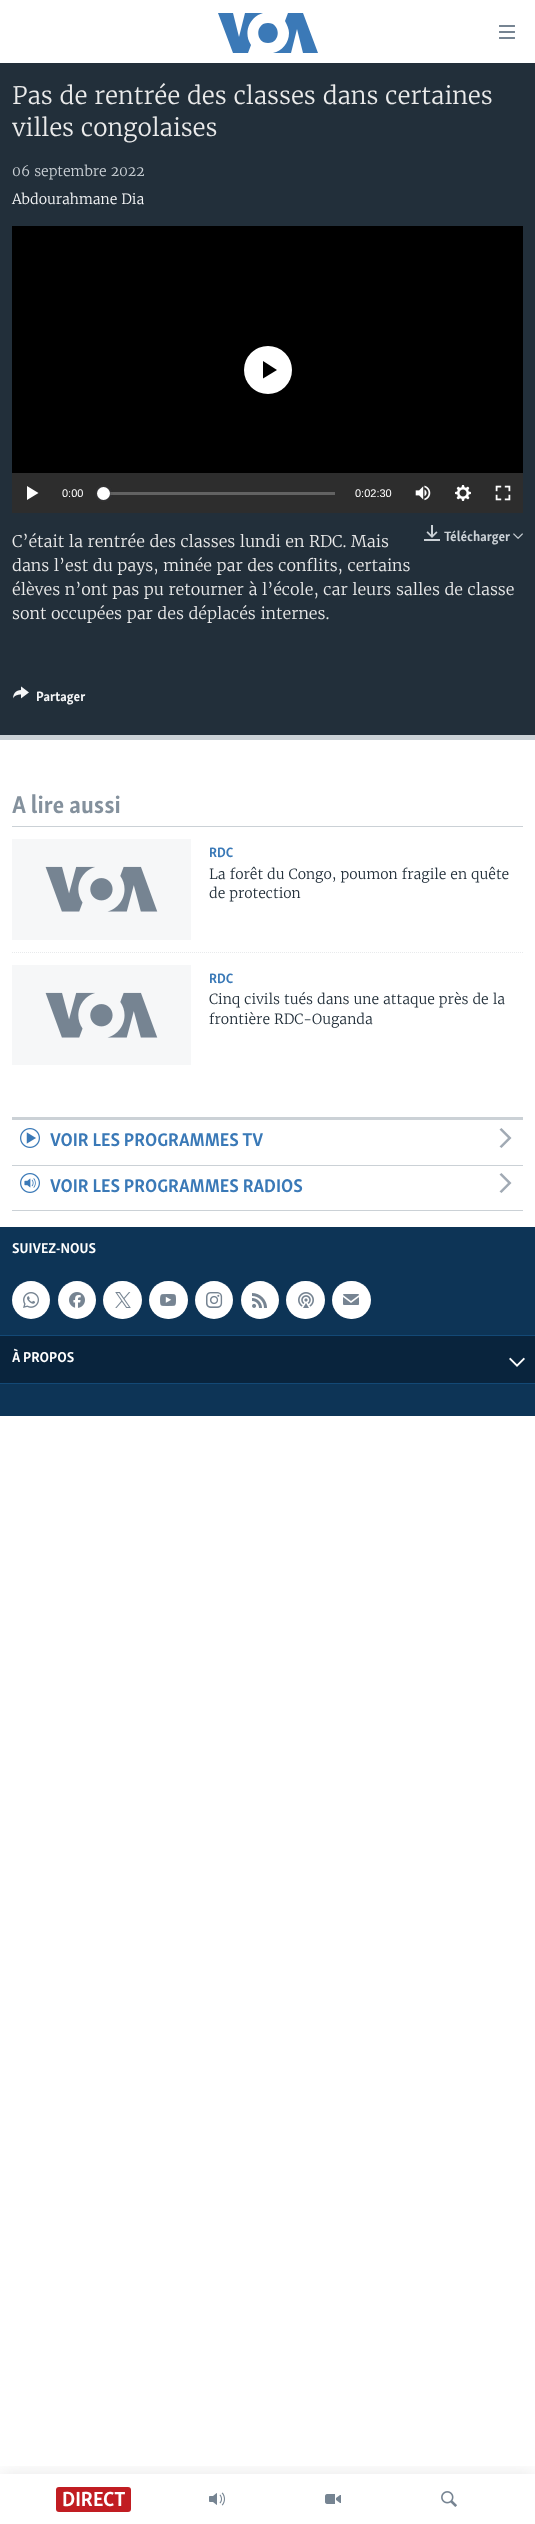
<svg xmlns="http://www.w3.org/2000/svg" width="535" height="2524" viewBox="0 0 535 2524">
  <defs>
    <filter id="blur1" x="-50%" y="-200%" width="200%" height="500%"><feGaussianBlur stdDeviation="1.5"/></filter>
    <clipPath id="clip1"><rect x="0" y="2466" width="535" height="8"/></clipPath>
    <filter id="blur2" x="-50%" y="-200%" width="200%" height="500%"><feGaussianBlur stdDeviation="10"/></filter>
  </defs>
  <rect width="100%" height="100%" fill="#ffffff"/>
  <rect x="0" y="63" width="535" height="672" fill="#222f3a"/>
  <rect x="0" y="735" width="535" height="5" fill="#cbd1d6"/>
  <text x="12" y="104" font-family="Merriweather" font-size="24" font-weight="300" fill="#ebebeb">Pas de rentrée des classes dans certaines</text>
  <text x="12" y="136" font-family="Merriweather" font-size="24" font-weight="300" fill="#ebebeb">villes congolaises</text>
  <text x="12" y="176" font-family="Merriweather" font-size="14" font-weight="300" fill="#cbd1d6">06 septembre 2022</text>
  <text x="12" y="204" font-family="Merriweather" font-size="14" font-weight="300" fill="#f6f7f8">Abdourahmane Dia</text>
  <rect x="12" y="226" width="511" height="247" fill="#000000"/>
  <circle cx="268" cy="370" r="24" fill="#ffffff"/>
  <path d="M263 378.5L277 370L263 361Z" fill="#000000"/>
  <rect x="12" y="473" width="511" height="40" fill="#2d2d2d"/>
  <path d="M27 500L38.5 493L27 486Z" fill="#ffffff"/>
  <text x="62" y="497" font-family="Liberation Sans" font-size="11" fill="#ffffff">0:00</text>
  <rect x="103" y="492" width="232" height="3" fill="#626262"/>
  <rect x="97" y="487" width="13" height="13" rx="6.5" fill="#414144" filter="url(#blur1)"/>
  <circle cx="103.5" cy="493.5" r="6.5" fill="#ffffff"/>
  <text x="355" y="497" font-family="Liberation Sans" font-size="11" fill="#ffffff">0:02:30</text>
  <image x="415" y="485" width="16" height="16" href="img1.png"/>
  <image x="455" y="485" width="16" height="16" href="img2.png"/>
  <image x="495" y="485" width="16" height="16" href="img3.png"/>
  <image x="424" y="525" width="16" height="16" href="img4.png"/>
  <text x="444" y="541" font-family="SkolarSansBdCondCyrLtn" font-size="14" font-weight="bold" fill="#cbd1d6">Télécharger</text>
  <image x="513" y="533" width="10" height="6" href="img5.png"/>
  <text x="12" y="547" font-family="Merriweather" font-size="16" font-weight="300" fill="#ebebeb">C’était la rentrée des classes lundi en RDC. Mais</text>
  <text x="12" y="571" font-family="Merriweather" font-size="16" font-weight="300" fill="#ebebeb">dans l’est du pays, minée par des conflits, certains</text>
  <text x="12" y="595" font-family="Merriweather" font-size="16" font-weight="300" fill="#ebebeb">élèves n’ont pas pu retourner à l’école, car leurs salles de classe</text>
  <text x="12" y="619" font-family="Merriweather" font-size="16" font-weight="300" fill="#ebebeb">sont occupées par des déplacés internes.</text>
  <image x="13" y="686" width="16" height="13" href="img6.png"/>
  <text x="36" y="701" font-family="SkolarSansBdCondCyrLtn" font-size="14" font-weight="bold" fill="#f6f7f8">Partager</text>
  <rect x="12" y="826" width="511" height="1" fill="#cbd1d6"/>
  <text x="12" y="813" font-family="SkolarSansBdCondCyrLtn" font-size="25" font-weight="bold" fill="#84919d">A lire aussi</text>
  <rect x="12" y="839" width="179" height="101" fill="#f6f7f8"/>
  <image x="45" y="866" width="113" height="46" href="img7.png"/>
  <text x="209" y="857" font-family="SkolarSansBdCondCyrLtn" font-size="14" font-weight="bold" fill="#3a79b7">RDC</text>
  <text x="209" y="879" font-family="Merriweather" font-size="14" font-weight="300" fill="#222f3a">La forêt du Congo, poumon fragile en quête</text>
  <text x="209" y="898" font-family="Merriweather" font-size="14" font-weight="300" fill="#222f3a">de protection</text>
  <path d="M12 952.5H523" fill="none" stroke="#e8eaec" stroke-dasharray="1 1"/>
  <rect x="12" y="965" width="179" height="100" fill="#f6f7f8"/>
  <image x="45" y="992" width="113" height="46" href="img7.png"/>
  <text x="209" y="983" font-family="SkolarSansBdCondCyrLtn" font-size="14" font-weight="bold" fill="#3a79b7">RDC</text>
  <text x="209" y="1004" font-family="Merriweather" font-size="14" font-weight="300" fill="#222f3a">Cinq civils tués dans une attaque près de la</text>
  <text x="209" y="1024" font-family="Merriweather" font-size="14" font-weight="300" fill="#222f3a">frontière RDC-Ouganda</text>
  <rect x="12" y="1117" width="511" height="3" fill="#cbd1d6"/>
  <rect x="12" y="1165" width="511" height="1" fill="#cbd1d6"/>
  <image x="20" y="1128" width="20" height="20" href="img8.png"/>
  <text x="50" y="1146" font-family="SkolarSansBdCondCyrLtn" font-size="18.9" font-weight="bold" fill="#3a79b7">VOIR LES PROGRAMMES TV</text>
  <path d="M501.5 1148L511.5 1138L501.5 1128L499.5 1129.5L508 1138L499.5 1146.5Z" fill="#a1aab4"/>
  <rect x="12" y="1210" width="511" height="1" fill="#cbd1d6"/>
  <image x="20" y="1173" width="20" height="20" href="img9.png"/>
  <text x="50" y="1192" font-family="SkolarSansBdCondCyrLtn" font-size="18.9" font-weight="bold" fill="#3a79b7">VOIR LES PROGRAMMES RADIOS</text>
  <path d="M501.5 1193L511.5 1183L501.5 1173L499.5 1174.5L508 1183L499.5 1191.5Z" fill="#a1aab4"/>
  <rect x="0" y="1227" width="535" height="189" fill="#0d3456"/>
  <rect x="0" y="1383" width="535" height="1" fill="#134976"/>
  <text x="12" y="1253" font-family="SkolarSansBdCondCyrLtn" font-size="14.75" font-weight="bold" fill="#ffffff">SUIVEZ-NOUS</text>
  <circle cx="31" cy="1300" r="19" fill="#ffffff"/>
  <image x="23" y="1292" width="16" height="16" href="img10.png"/>
  <circle cx="77" cy="1300" r="19" fill="#ffffff"/>
  <image x="69" y="1292" width="16" height="16" href="img11.png"/>
  <rect x="103" y="1281" width="39" height="38" rx="19" fill="#ffffff"/>
  <image x="115" y="1292" width="16" height="16" href="img12.png"/>
  <rect x="149" y="1281" width="39" height="38" rx="19" fill="#ffffff"/>
  <image x="160" y="1294" width="16" height="12" href="img13.png"/>
  <circle cx="214" cy="1300" r="19" fill="#ffffff"/>
  <image x="206" y="1292" width="17" height="16" href="img14.png"/>
  <circle cx="260" cy="1300" r="19" fill="#ffffff"/>
  <image x="252" y="1293" width="15" height="15" href="img15.png"/>
  <rect x="286" y="1281" width="39" height="38" rx="19" fill="#ffffff"/>
  <image x="298" y="1292" width="16" height="16" href="img16.png"/>
  <rect x="332" y="1281" width="39" height="38" rx="19" fill="#ffffff"/>
  <image x="343" y="1294" width="16" height="11" href="img17.png"/>
  <rect x="0" y="1335" width="535" height="1" fill="#134976"/>
  <rect x="0" y="1336" width="535" height="47" fill="#09243d"/>
  <text x="12" y="1362" font-family="SkolarSansBdCondCyrLtn" font-size="14.75" font-weight="bold" fill="#ffffff">À PROPOS</text>
  <image x="509" y="1357" width="16" height="10" href="img18.png"/>
  <path d="M251 45L248 53H233L218 13H233L239 37L245 13H263C249 17 243 33 251 45ZM268 23C255 23 255 43 268 43C281 43 281 23 268 23ZM289 33C289 43 282 51 273 53H291L297 29L303 53H318L303 13H288L285 21C287 25 289 29 289 33Z" fill="#3b79b7"/>
  <image x="499" y="25" width="16" height="14" href="img19.png"/>
  <g clip-path="url(#clip1)">
    <rect x="0" y="2474" width="535" height="50" fill="#000000" fill-opacity="0.1" filter="url(#blur2)"/>
  </g>
  <rect x="56" y="2487" width="75" height="25" rx="3" fill="#c11d22"/>
  <text x="62" y="2506" font-family="SkolarSansBdCondCyrLtn" font-size="21" font-weight="bold" fill="#ffffff">DIRECT</text>
  <image x="209" y="2492" width="16" height="14" href="img20.png"/>
  <image x="325" y="2494" width="16" height="10" href="img21.png"/>
  <image x="441" y="2491" width="16" height="16" href="img22.png"/>
</svg>
